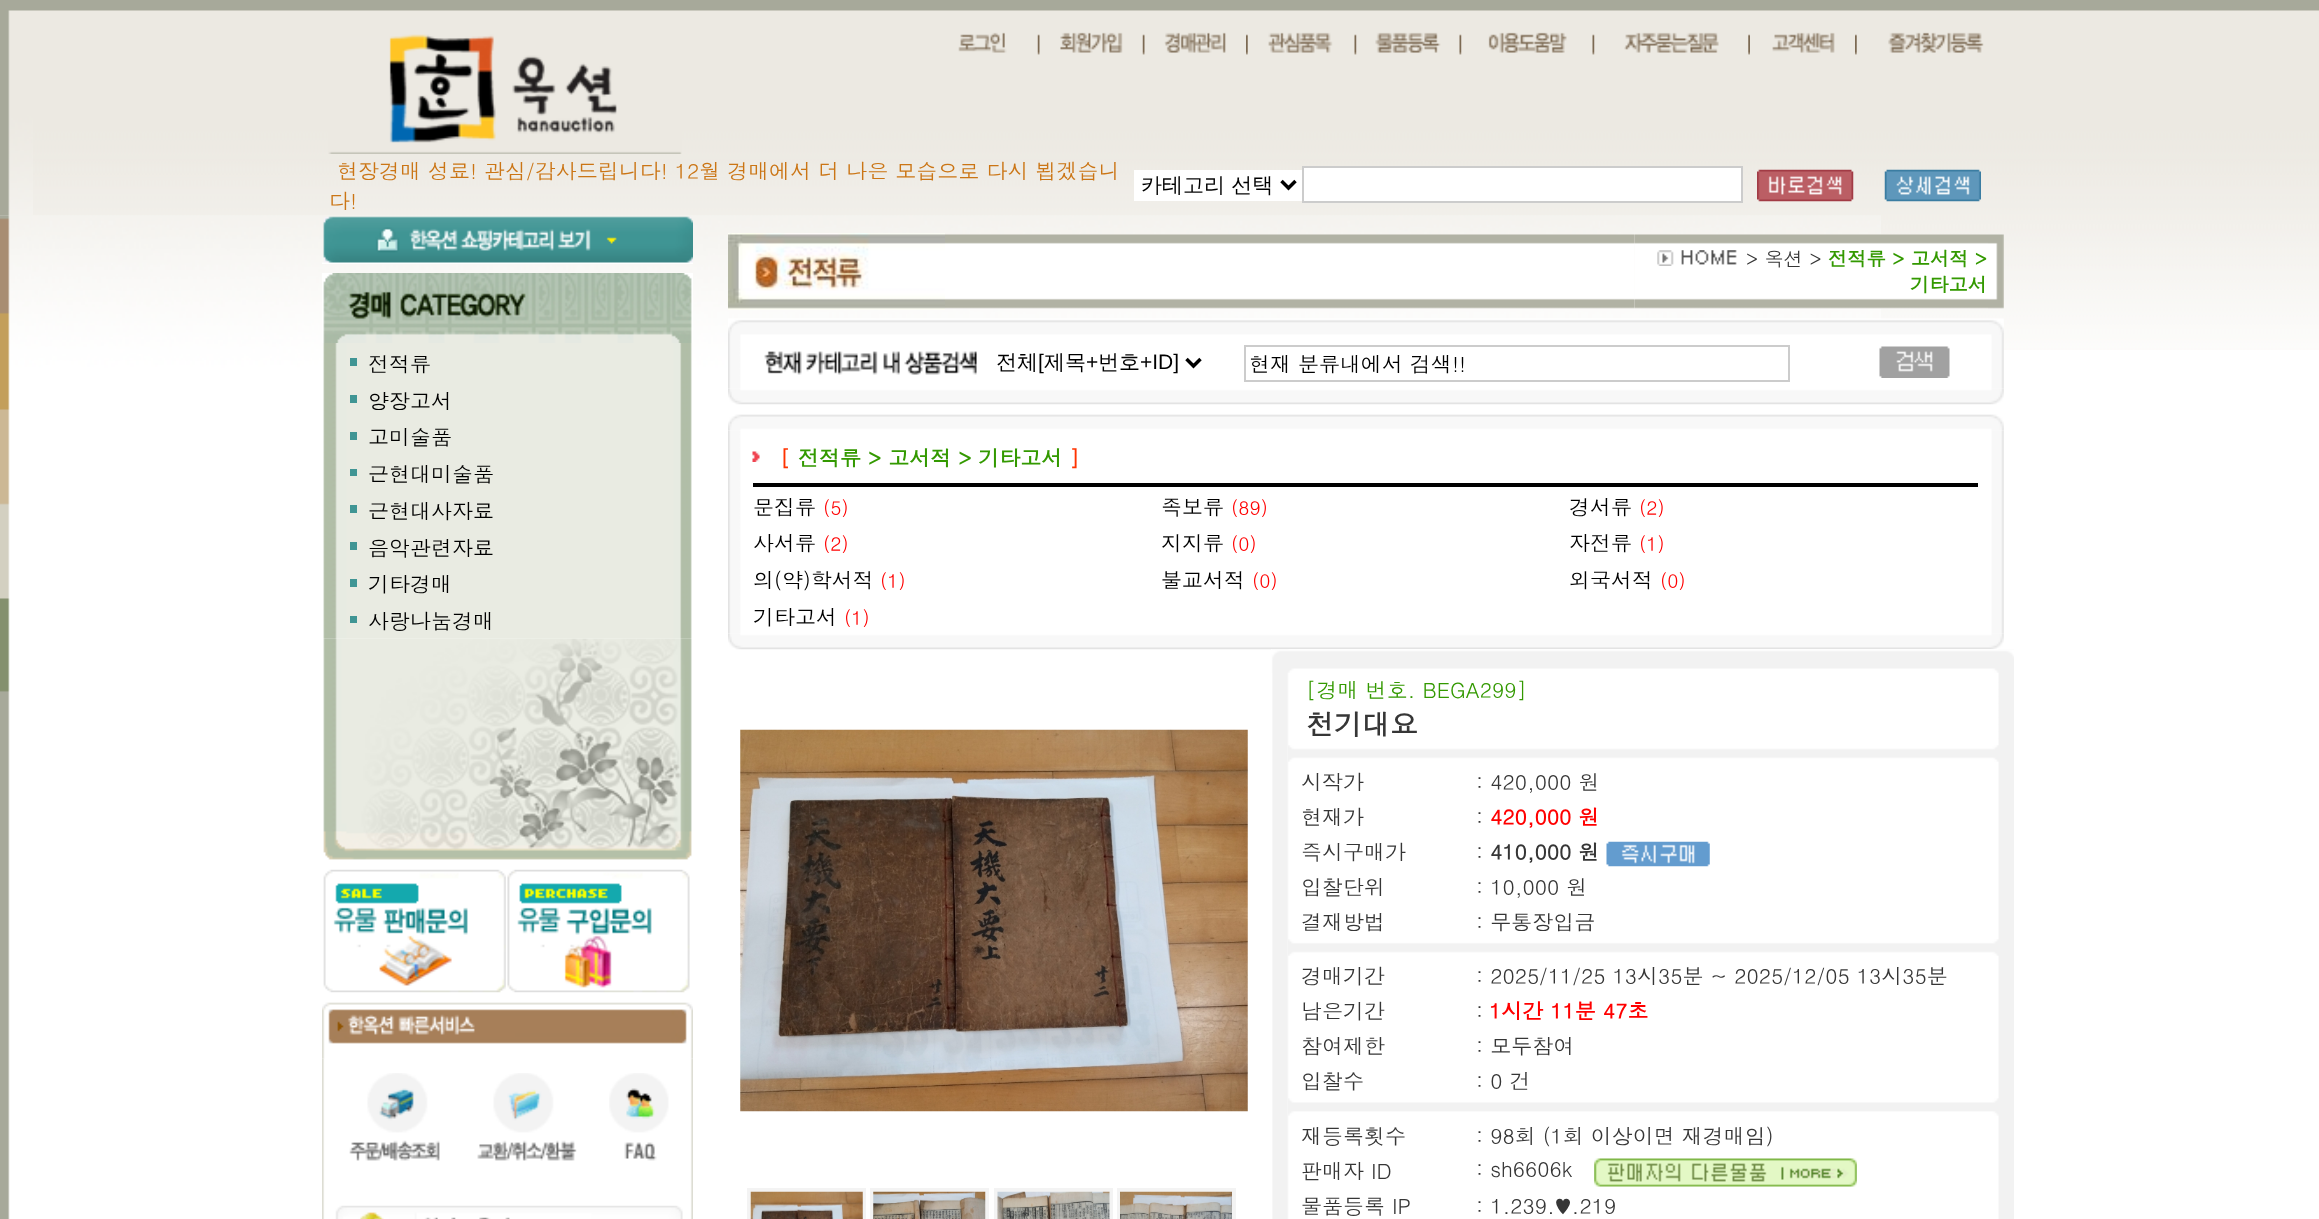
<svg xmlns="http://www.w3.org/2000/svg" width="2319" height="1219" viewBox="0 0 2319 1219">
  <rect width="100%" height="100%" fill="#ffffff"/>
  <image x="0" y="0" width="2319" height="350" href="img1.png"/>
  <image x="0" y="10" width="33" height="206" href="img2.png"/>
  <image x="328" y="34" width="354" height="120" href="img3.png"/>
  <image x="958" y="32" width="49" height="21" href="img4.png"/>
  <image x="1037" y="34" width="3" height="21" href="img5.png"/>
  <image x="1060" y="32" width="63" height="21" href="img6.png"/>
  <image x="1142" y="34" width="3" height="21" href="img5.png"/>
  <image x="1164" y="32" width="62" height="21" href="img7.png"/>
  <image x="1246" y="34" width="2" height="21" href="img8.png"/>
  <image x="1268" y="32" width="65" height="21" href="img9.png"/>
  <image x="1354" y="34" width="3" height="21" href="img10.png"/>
  <image x="1375" y="32" width="66" height="21" href="img11.png"/>
  <image x="1459" y="34" width="3" height="21" href="img10.png"/>
  <image x="1488" y="32" width="79" height="21" href="img12.png"/>
  <image x="1592" y="34" width="3" height="21" href="img10.png"/>
  <image x="1624" y="32" width="95" height="21" href="img13.png"/>
  <image x="1748" y="34" width="2" height="21" href="img14.png"/>
  <image x="1772" y="32" width="63" height="21" href="img15.png"/>
  <image x="1855" y="34" width="2" height="21" href="img8.png"/>
  <image x="1888" y="32" width="96" height="21" href="img16.png"/>
  <text x="337" y="179" font-family="Dotum" font-size="21" fill="#cb7515">현장경매 성료! 관심/감사드립니다! 12월 경매에서 더 나은 모습으로 다시 뵙겠습니</text>
  <text x="329" y="209" font-family="Dotum" font-size="21" fill="#cb7515">다!</text>
  <rect x="1134" y="170" width="168" height="31" fill="#ffffff"/>
  <path d="M1281.5 181L1288.5 188L1295.5 181" fill="none" stroke="#000000" stroke-width="3.5"/>
  <text x="1141" y="192" font-family="WenQuanYi Zen Hei" font-size="21" font-weight="500" fill="#000000">카테고리 선택</text>
  <rect x="1303" y="167" width="439" height="35" fill="#ffffff" stroke="#cccccc" stroke-width="2"/>
  <image x="1757" y="169" width="97" height="33" href="img17.png"/>
  <image x="1884" y="169" width="97" height="33" href="img18.png"/>
  <image x="0" y="215" width="1881" height="1004" href="img19.png"/>
  <image x="322" y="216" width="371" height="48" href="img20.png"/>
  <image x="322" y="273" width="371" height="70" href="img21.png"/>
  <image x="323" y="343" width="369" height="296" href="img22.png"/>
  <rect x="350" y="358" width="7" height="8" fill="#409594"/>
  <text x="368" y="372" font-family="Dotum" font-size="21" fill="#000000">전적류</text>
  <rect x="350" y="395" width="7" height="8" fill="#409594"/>
  <text x="368" y="409" font-family="Dotum" font-size="21" fill="#000000">양장고서</text>
  <rect x="350" y="432" width="7" height="8" fill="#409594"/>
  <text x="368" y="445" font-family="Dotum" font-size="21" fill="#000000">고미술품</text>
  <rect x="350" y="469" width="7" height="7" fill="#409594"/>
  <text x="368" y="482" font-family="Dotum" font-size="21" fill="#000000">근현대미술품</text>
  <rect x="350" y="505" width="7" height="8" fill="#409594"/>
  <text x="368" y="519" font-family="Dotum" font-size="21" fill="#000000">근현대사자료</text>
  <rect x="350" y="542" width="7" height="8" fill="#409594"/>
  <text x="368" y="556" font-family="Dotum" font-size="21" fill="#000000">음악관련자료</text>
  <rect x="350" y="579" width="7" height="8" fill="#409594"/>
  <text x="368" y="592" font-family="Dotum" font-size="21" fill="#000000">기타경매</text>
  <rect x="350" y="616" width="7" height="7" fill="#409594"/>
  <text x="368" y="629" font-family="Dotum" font-size="21" fill="#000000">사랑나눔경매</text>
  <image x="323" y="638" width="369" height="222" href="img23.png"/>
  <image x="323" y="869" width="183" height="124" href="img24.png"/>
  <image x="507" y="869" width="183" height="124" href="img25.png"/>
  <image x="322" y="1058" width="371" height="161" href="img27.png"/>
  <image x="322" y="1002" width="371" height="57" href="img26.png"/>
  <image x="349" y="1073" width="91" height="88" href="img28.png"/>
  <image x="477" y="1073" width="100" height="88" href="img29.png"/>
  <image x="609" y="1073" width="60" height="88" href="img30.png"/>
  <image x="335" y="1205" width="348" height="14" href="img31.png"/>
  <image x="728" y="233" width="217" height="77" href="img32.png"/>
  <image x="945" y="234" width="690" height="75" href="img33.png"/>
  <image x="1634" y="234" width="354" height="75" href="img34.png"/>
  <image x="1657" y="250" width="80" height="16" href="img35.png"/>
  <text x="1746" y="266" font-family="Dotum" font-size="19.25" fill="#363636">&gt; 옥션 &gt;</text>
  <text x="1828" y="266" font-family="Dotum" font-size="19.25" font-weight="bold" fill="#339900">전적류 &gt; 고서적 &gt;</text>
  <text x="1910" y="292" font-family="Dotum" font-size="19.25" font-weight="bold" fill="#339900">기타고서</text>
  <image x="1988" y="234" width="16" height="75" href="img36.png"/>
  <image x="728" y="318" width="1276" height="18" href="img37.png"/>
  <image x="728" y="336" width="1276" height="53" href="img38.png"/>
  <image x="764" y="351" width="213" height="24" href="img39.png"/>
  <path d="M1186.5 359L1193.5 366L1200.5 359" fill="none" stroke="#000000" stroke-width="3.5"/>
  <text x="996" y="369" font-family="WenQuanYi Zen Hei" font-size="21" font-weight="500" fill="#000000">전체</text>
  <text x="1038" y="369" font-family="Liberation Sans" font-size="21" fill="#000000">[</text>
  <text x="1044" y="369" font-family="WenQuanYi Zen Hei" font-size="21" font-weight="500" fill="#000000">제목</text>
  <text x="1086" y="369" font-family="Liberation Sans" font-size="21" fill="#000000">+</text>
  <text x="1098" y="369" font-family="WenQuanYi Zen Hei" font-size="21" font-weight="500" fill="#000000">번호</text>
  <text x="1140" y="369" font-family="Liberation Sans" font-size="21" fill="#000000">+ID]</text>
  <rect x="1245" y="346" width="544" height="35" fill="none" stroke="#cccccc" stroke-width="2"/>
  <text x="1249" y="372" font-family="Dotum" font-size="21" fill="#000000">현재 분류내에서 검색!!</text>
  <image x="1879" y="346" width="71" height="32" href="img40.png"/>
  <image x="728" y="388" width="1276" height="17" href="img41.png"/>
  <image x="728" y="430" width="1276" height="204" href="img43.png"/>
  <image x="728" y="414" width="1276" height="17" href="img42.png"/>
  <image x="752" y="451" width="8" height="11" href="img44.png"/>
  <text x="780" y="466" font-family="Dotum" font-size="21" font-weight="bold" fill="#ff3300">[</text>
  <text x="798" y="466" font-family="Dotum" font-size="21" font-weight="bold" fill="#339900">전적류 &gt; 고서적 &gt; 기타고서</text>
  <text x="1069" y="466" font-family="Dotum" font-size="21" font-weight="bold" fill="#ff3300">]</text>
  <rect x="753" y="483" width="1225" height="4" fill="#000000"/>
  <text x="753" y="515" font-family="Dotum" font-size="21" fill="#000000">문집류</text>
  <text x="823" y="515" font-family="Dotum" font-size="19.25" fill="#ff0000">(5)</text>
  <text x="1161" y="515" font-family="Dotum" font-size="21" fill="#000000">족보류</text>
  <text x="1231" y="515" font-family="Dotum" font-size="19.25" fill="#ff0000">(89)</text>
  <text x="1569" y="515" font-family="Dotum" font-size="21" fill="#000000">경서류</text>
  <text x="1639" y="515" font-family="Dotum" font-size="19.25" fill="#ff0000">(2)</text>
  <text x="753" y="551" font-family="Dotum" font-size="21" fill="#000000">사서류</text>
  <text x="823" y="551" font-family="Dotum" font-size="19.25" fill="#ff0000">(2)</text>
  <text x="1161" y="551" font-family="Dotum" font-size="21" fill="#000000">지지류</text>
  <text x="1231" y="551" font-family="Dotum" font-size="19.25" fill="#ff0000">(0)</text>
  <text x="1569" y="551" font-family="Dotum" font-size="21" fill="#000000">자전류</text>
  <text x="1639" y="551" font-family="Dotum" font-size="19.25" fill="#ff0000">(1)</text>
  <text x="753" y="588" font-family="Dotum" font-size="21" fill="#000000">의(약)학서적</text>
  <text x="880" y="588" font-family="Dotum" font-size="19.25" fill="#ff0000">(1)</text>
  <text x="1161" y="588" font-family="Dotum" font-size="21" fill="#000000">불교서적</text>
  <text x="1252" y="588" font-family="Dotum" font-size="19.25" fill="#ff0000">(0)</text>
  <text x="1569" y="588" font-family="Dotum" font-size="21" fill="#000000">외국서적</text>
  <text x="1660" y="588" font-family="Dotum" font-size="19.25" fill="#ff0000">(0)</text>
  <text x="753" y="625" font-family="Dotum" font-size="21" fill="#000000">기타고서</text>
  <text x="844" y="625" font-family="Dotum" font-size="19.25" fill="#ff0000">(1)</text>
  <image x="1272" y="649" width="742" height="570" href="img51.png"/>
  <image x="728" y="633" width="1276" height="17" href="img45.png"/>
  <image x="740" y="729" width="508" height="383" href="img46.png"/>
  <rect x="749" y="1190" width="115" height="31" fill="none" stroke="#f3f3f3" stroke-width="4"/>
  <image x="750" y="1191" width="113" height="28" href="img47.png"/>
  <rect x="872" y="1190" width="115" height="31" fill="none" stroke="#f3f3f3" stroke-width="4"/>
  <image x="873" y="1191" width="113" height="28" href="img48.png"/>
  <rect x="996" y="1190" width="115" height="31" fill="none" stroke="#f3f3f3" stroke-width="4"/>
  <image x="997" y="1191" width="113" height="28" href="img49.png"/>
  <rect x="1119" y="1190" width="115" height="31" fill="none" stroke="#f3f3f3" stroke-width="4"/>
  <image x="1120" y="1191" width="112" height="28" href="img50.png"/>
  <image x="1271" y="649" width="743" height="24" href="img52.png"/>
  <text x="1306" y="698" font-family="Dotum" font-size="21" fill="#339900">[경매 번호. BEGA299]</text>
  <text x="1306" y="735" font-family="Dotum" font-size="28" font-weight="bold" fill="#363636">천기대요</text>
  <image x="1288" y="745" width="711" height="17" href="img53.png"/>
  <text x="1301" y="790" font-family="Dotum" font-size="21" fill="#363636">시작가</text>
  <text x="1476" y="790" font-family="Dotum" font-size="21" fill="#363636">: 420,000 원</text>
  <text x="1301" y="825" font-family="Dotum" font-size="21" fill="#363636">현재가</text>
  <text x="1476" y="825" font-family="Dotum" font-size="21" fill="#363636">:</text>
  <text x="1490" y="825" font-family="Dotum" font-size="21" font-weight="bold" fill="#ff0000">420,000 원</text>
  <text x="1301" y="860" font-family="Dotum" font-size="21" fill="#363636">즉시구매가</text>
  <text x="1476" y="860" font-family="Dotum" font-size="21" fill="#363636">:</text>
  <text x="1490" y="860" font-family="Dotum" font-size="21" font-weight="bold" fill="#363636">410,000 원</text>
  <image x="1606" y="841" width="104" height="26" href="img54.png"/>
  <text x="1301" y="895" font-family="Dotum" font-size="21" fill="#363636">입찰단위</text>
  <text x="1476" y="895" font-family="Dotum" font-size="21" fill="#363636">: 10,000 원</text>
  <text x="1301" y="930" font-family="Dotum" font-size="21" fill="#363636">결재방법</text>
  <text x="1476" y="930" font-family="Dotum" font-size="21" fill="#363636">: 무통장입금</text>
  <image x="1288" y="939" width="711" height="17" href="img55.png"/>
  <text x="1301" y="984" font-family="Dotum" font-size="21" fill="#363636">경매기간</text>
  <text x="1476" y="984" font-family="Dotum" font-size="21" fill="#363636">: 2025/11/25 13시35분 ~ 2025/12/05 13시35분</text>
  <text x="1301" y="1019" font-family="Dotum" font-size="21" fill="#363636">남은기간</text>
  <text x="1476" y="1019" font-family="Dotum" font-size="21" fill="#363636">:</text>
  <text x="1489" y="1019" font-family="Dotum" font-size="21" font-weight="bold" fill="#ff0000">1시간 11분 47초</text>
  <text x="1301" y="1054" font-family="Dotum" font-size="21" fill="#363636">참여제한</text>
  <text x="1476" y="1054" font-family="Dotum" font-size="21" fill="#363636">: 모두참여</text>
  <text x="1301" y="1089" font-family="Dotum" font-size="21" fill="#363636">입찰수</text>
  <text x="1476" y="1089" font-family="Dotum" font-size="21" fill="#363636">: 0 건</text>
  <image x="1288" y="1098" width="711" height="18" href="img56.png"/>
  <text x="1301" y="1144" font-family="Dotum" font-size="21" fill="#363636">재등록횟수</text>
  <text x="1476" y="1144" font-family="Dotum" font-size="21" fill="#363636">: 98회 (1회 이상이면 재경매임)</text>
  <text x="1301" y="1179" font-family="Dotum" font-size="21" fill="#363636">판매자 ID</text>
  <text x="1476" y="1177" font-family="Dotum" font-size="21" fill="#363636">: sh6606k</text>
  <image x="1594" y="1158" width="263" height="29" href="img57.png"/>
  <text x="1301" y="1214" font-family="Dotum" font-size="21" fill="#363636">물품등록 IP</text>
  <text x="1476" y="1214" font-family="Dotum" font-size="21" fill="#363636">: 1.239.♥.219</text>
</svg>
